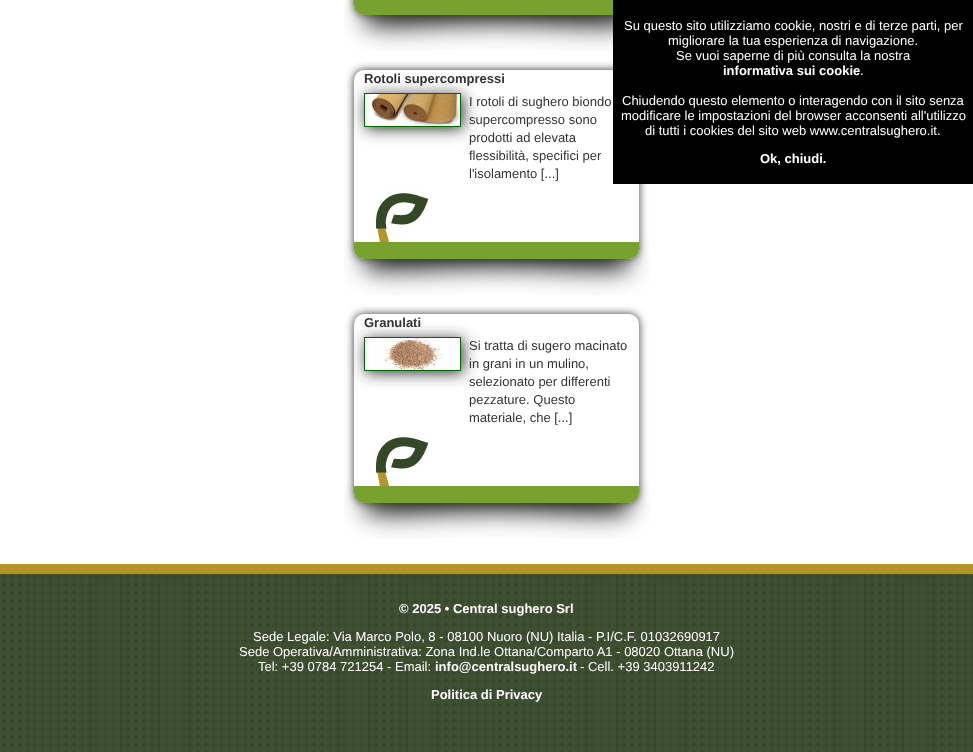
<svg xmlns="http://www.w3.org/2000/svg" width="973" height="752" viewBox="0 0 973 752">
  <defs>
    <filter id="blur1" x="-50%" y="-200%" width="200%" height="500%"><feGaussianBlur stdDeviation="4"/></filter>
    <filter id="blur2" x="-50%" y="-200%" width="200%" height="500%"><feGaussianBlur stdDeviation="7.5"/></filter>
    <clipPath id="clip1"><path d="M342 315H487V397H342ZM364 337H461V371H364Z" clip-rule="evenodd"/></clipPath>
  </defs>
  <rect width="100%" height="100%" fill="#ffffff"/>
  <image x="344" y="0" width="269" height="51" href="img1.png"/>
  <rect x="354" y="-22" width="285" height="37" rx="10" fill="#333333" filter="url(#blur1)"/>
  <rect x="354" y="-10" width="285" height="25" rx="10" fill="#ffffff"/>
  <image x="354" y="0" width="259" height="15" href="img2.png"/>
  <image x="344" y="239" width="306" height="56" href="img3.png"/>
  <rect x="354" y="70" width="285" height="189" rx="10" fill="#333333" filter="url(#blur1)"/>
  <rect x="354" y="70" width="285" height="189" rx="10" fill="#ffffff"/>
  <image x="354" y="190" width="285" height="69" href="img4.png"/>
  <rect x="366" y="95" width="97" height="34" fill="#333333" filter="url(#blur2)"/>
  <rect x="364.5" y="93.5" width="96" height="33" fill="none" stroke="#006600"/>
  <image x="365" y="94" width="95" height="32" href="img5.png"/>
  <text x="364" y="83" font-family="Liberation Sans" font-size="13" font-weight="bold" fill="#333333">Rotoli supercompressi</text>
  <text x="469" y="106" font-family="Liberation Sans" font-size="13" fill="#333333">I rotoli di sughero biondo</text>
  <text x="469" y="124" font-family="Liberation Sans" font-size="13" fill="#333333">supercompresso sono</text>
  <text x="469" y="142" font-family="Liberation Sans" font-size="13" fill="#333333">prodotti ad elevata</text>
  <text x="469" y="160" font-family="Liberation Sans" font-size="13" fill="#333333">flessibilità, specifici per</text>
  <text x="469" y="178" font-family="Liberation Sans" font-size="13" fill="#333333">l'isolamento [...]</text>
  <image x="344" y="483" width="306" height="56" href="img3.png"/>
  <rect x="354" y="314" width="285" height="189" rx="10" fill="#333333" filter="url(#blur1)"/>
  <rect x="354" y="314" width="285" height="189" rx="10" fill="#ffffff"/>
  <image x="354" y="434" width="285" height="69" href="img4.png"/>
  <g clip-path="url(#clip1)">
    <rect x="366" y="339" width="97" height="34" fill="#333333" filter="url(#blur2)"/>
  </g>
  <rect x="364.5" y="337.5" width="96" height="33" fill="none" stroke="#006600"/>
  <image x="381" y="338" width="64" height="32" href="img6.png"/>
  <text x="364" y="327" font-family="Liberation Sans" font-size="13" font-weight="bold" fill="#333333">Granulati</text>
  <text x="469" y="350" font-family="Liberation Sans" font-size="13" fill="#333333">Si tratta di sugero macinato</text>
  <text x="469" y="368" font-family="Liberation Sans" font-size="13" fill="#333333">in grani in un mulino,</text>
  <text x="469" y="386" font-family="Liberation Sans" font-size="13" fill="#333333">selezionato per differenti</text>
  <text x="469" y="404" font-family="Liberation Sans" font-size="13" fill="#333333">pezzature. Questo</text>
  <text x="469" y="422" font-family="Liberation Sans" font-size="13" fill="#333333">materiale, che [...]</text>
  <image x="0" y="553" width="973" height="199" href="img7.png"/>
  <text x="399" y="613" font-family="Liberation Sans" font-size="13" font-weight="bold" fill="#ffffff">© 2025 • Central sughero Srl</text>
  <text x="253" y="641" font-family="Liberation Sans" font-size="13" fill="#ffffff">Sede Legale: Via Marco Polo, 8 - 08100 Nuoro (NU) Italia - P.I/C.F. 01032690917</text>
  <text x="239" y="656" font-family="Liberation Sans" font-size="13" fill="#ffffff">Sede Operativa/Amministrativa: Zona Ind.le Ottana/Comparto A1 - 08020 Ottana (NU)</text>
  <text x="258" y="671" font-family="Liberation Sans" font-size="13" fill="#ffffff">Tel: +39 0784 721254 - Email:</text>
  <text x="435" y="671" font-family="Liberation Sans" font-size="13" font-weight="bold" fill="#ffffff">info@centralsughero.it</text>
  <text x="580" y="671" font-family="Liberation Sans" font-size="13" fill="#ffffff">- Cell. +39 3403911242</text>
  <text x="431" y="699" font-family="Liberation Sans" font-size="13" font-weight="bold" fill="#ffffff">Politica di Privacy</text>
  <rect x="613" y="0" width="360" height="184" fill="#000000"/>
  <text x="624" y="30" font-family="Liberation Sans" font-size="13" fill="#ffffff">Su questo sito utilizziamo cookie, nostri e di terze parti, per</text>
  <text x="668" y="45" font-family="Liberation Sans" font-size="13" fill="#ffffff">migliorare la tua esperienza di navigazione.</text>
  <text x="676" y="60" font-family="Liberation Sans" font-size="13" fill="#ffffff">Se vuoi saperne di più consulta la nostra</text>
  <text x="723" y="75" font-family="Liberation Sans" font-size="13" font-weight="bold" fill="#ffffff">informativa sui cookie</text>
  <text x="860" y="75" font-family="Liberation Sans" font-size="13" fill="#ffffff">.</text>
  <text x="622" y="105" font-family="Liberation Sans" font-size="13" fill="#ffffff">Chiudendo questo elemento o interagendo con il sito senza</text>
  <text x="621" y="120" font-family="Liberation Sans" font-size="13" fill="#ffffff">modificare le impostazioni del browser acconsenti all'utilizzo</text>
  <text x="645" y="135" font-family="Liberation Sans" font-size="13" fill="#ffffff">di tutti i cookies del sito web www.centralsughero.it.</text>
  <text x="760" y="163" font-family="Liberation Sans" font-size="13" font-weight="bold" fill="#ffffff">Ok, chiudi.</text>
</svg>
